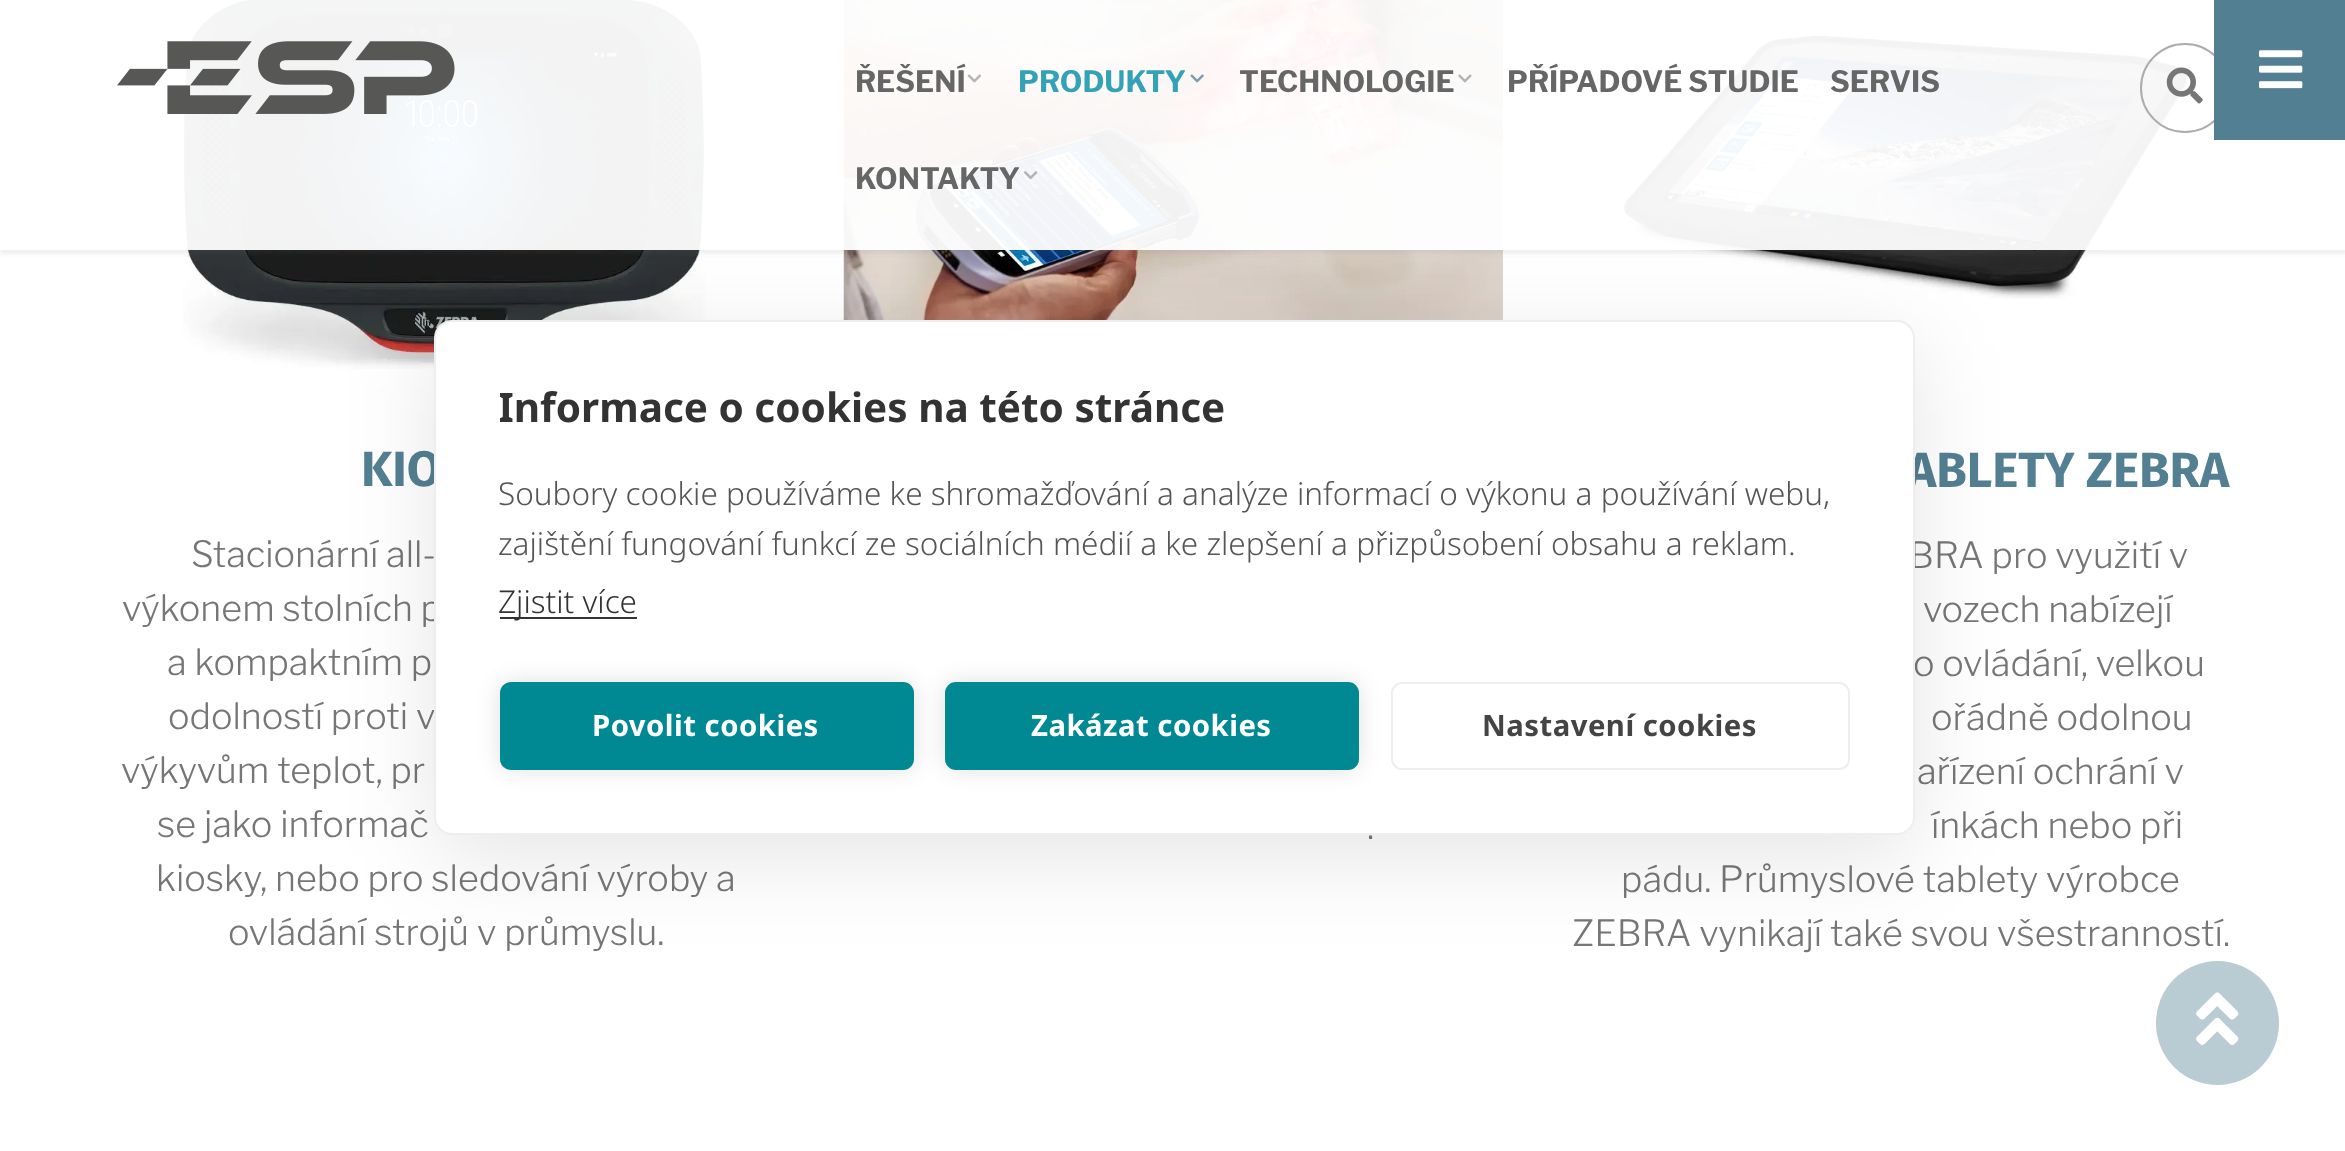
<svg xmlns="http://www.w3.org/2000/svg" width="2345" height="1151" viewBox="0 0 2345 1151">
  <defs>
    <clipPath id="clip1"><path d="M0 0H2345V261H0ZM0 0H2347V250H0Z" clip-rule="evenodd"/></clipPath>
    <filter id="blur1" x="-50%" y="-200%" width="200%" height="500%"><feGaussianBlur stdDeviation="2"/></filter>
    <filter id="blur2" x="-50%" y="-200%" width="200%" height="500%"><feGaussianBlur stdDeviation="45"/></filter>
    <clipPath id="clip2"><rect x="500" y="385" width="1350" height="297"/></clipPath>
    <filter id="blur3" x="-50%" y="-200%" width="200%" height="500%"><feGaussianBlur stdDeviation="11"/></filter>
  </defs>
  <rect width="100%" height="100%" fill="#ffffff"/>
  <image x="182" y="0" width="524" height="369" href="img7.png"/>
  <image x="843" y="0" width="660" height="320" href="img8.png"/>
  <image x="1623" y="35" width="565" height="264" href="img9.png"/>
  <g clip-path="url(#clip1)">
    <rect x="0" y="5" width="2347" height="249" fill="#646464" fill-opacity="0.1" filter="url(#blur1)"/>
  </g>
  <rect x="1" y="0" width="2344" height="250" fill="#ffffff" fill-opacity="0.95"/>
  <image x="117" y="41" width="338" height="73" href="img1.png"/>
  <text x="855" y="92" font-family="Libre Franklin" font-size="29.25" font-weight="bold" fill="#666666">ŘEŠENÍ</text>
  <image x="967" y="74" width="14" height="9" href="img2.png"/>
  <text x="1018" y="92" font-family="Libre Franklin" font-size="29.25" font-weight="bold" fill="#33a2b6">PRODUKTY</text>
  <image x="1190" y="74" width="14" height="9" href="img3.png"/>
  <text x="1239" y="92" font-family="Libre Franklin" font-size="29.25" font-weight="bold" fill="#666666">TECHNOLOGIE</text>
  <image x="1458" y="74" width="14" height="9" href="img4.png"/>
  <text x="1507" y="92" font-family="Libre Franklin" font-size="29.25" font-weight="bold" fill="#666666">PŘÍPADOVÉ STUDIE</text>
  <text x="1830" y="92" font-family="Libre Franklin" font-size="29.25" font-weight="bold" fill="#666666">SERVIS</text>
  <text x="855" y="189" font-family="Libre Franklin" font-size="29.25" font-weight="bold" fill="#666666">KONTAKTY</text>
  <image x="1024" y="171" width="14" height="9" href="img5.png"/>
  <circle cx="2185" cy="88" r="44" fill="none" stroke="#acacac" stroke-width="2"/>
  <image x="2166" y="67" width="37" height="37" href="img6.png"/>
  <text x="361" y="486" font-family="Fira Sans" font-size="49.5" font-weight="bold" fill="#537f92">KIO</text>
  <text x="191" y="567" font-family="Libre Franklin" font-size="36" font-weight="300" fill="#767676">Stacionární all-</text>
  <text x="122" y="621" font-family="Libre Franklin" font-size="36" font-weight="300" fill="#767676">výkonem stolních p</text>
  <text x="167" y="675" font-family="Libre Franklin" font-size="36" font-weight="300" fill="#767676">a kompaktním p</text>
  <text x="168" y="729" font-family="Libre Franklin" font-size="36" font-weight="300" fill="#767676">odolností proti v</text>
  <text x="121" y="783" font-family="Libre Franklin" font-size="36" font-weight="300" fill="#767676">výkyvům teplot, pr</text>
  <text x="157" y="837" font-family="Libre Franklin" font-size="36" font-weight="300" fill="#767676">se jako informač</text>
  <text x="156" y="891" font-family="Libre Franklin" font-size="36" font-weight="300" fill="#767676">kiosky, nebo pro sledování výroby a</text>
  <text x="228" y="945" font-family="Libre Franklin" font-size="36" font-weight="300" fill="#767676">ovládání strojů v průmyslu.</text>
  <text x="1367" y="839" font-family="Libre Franklin" font-size="36" font-weight="300" fill="#767676">.</text>
  <text x="1907" y="487" font-family="Fira Sans" font-size="49.5" font-weight="bold" fill="#537f92">ABLETY ZEBRA</text>
  <text x="1909" y="568" font-family="Libre Franklin" font-size="36" font-weight="300" fill="#767676">BRA pro využití v</text>
  <text x="1923" y="622" font-family="Libre Franklin" font-size="36" font-weight="300" fill="#767676">vozech nabízejí</text>
  <text x="1913" y="676" font-family="Libre Franklin" font-size="36" font-weight="300" fill="#767676">o ovládání, velkou</text>
  <text x="1931" y="730" font-family="Libre Franklin" font-size="36" font-weight="300" fill="#767676">ořádně odolnou</text>
  <text x="1917" y="784" font-family="Libre Franklin" font-size="36" font-weight="300" fill="#767676">ařízení ochrání v</text>
  <text x="1931" y="838" font-family="Libre Franklin" font-size="36" font-weight="300" fill="#767676">ínkách nebo při</text>
  <text x="1621" y="892" font-family="Libre Franklin" font-size="36" font-weight="300" fill="#767676">pádu. Průmyslové tablety výrobce</text>
  <text x="1572" y="946" font-family="Libre Franklin" font-size="36" font-weight="300" fill="#767676">ZEBRA vynikají také svou všestranností.</text>
  <rect x="2156" y="961" width="123" height="124" rx="61.5" fill="#baccd3"/>
  <image x="2196" y="992" width="43" height="53" href="img10.png"/>
  <rect x="2214" y="0" width="131" height="140" fill="#537f92"/>
  <image x="2259" y="50" width="44" height="39" href="img11.png"/>
  <rect x="434" y="342" width="1481" height="515" rx="18" fill="#000000" fill-opacity="0.1" filter="url(#blur2)"/>
  <rect x="435" y="321" width="1479" height="513" rx="17" fill="#ffffff" stroke="#eeeeee" stroke-width="2"/>
  <g clip-path="url(#clip2)">
    <text x="498" y="422" font-family="Noto Sans" font-size="40.5" font-weight="bold" fill="#333333">Informace o cookies na této stránce</text>
  </g>
  <text x="498" y="505" font-family="Noto Sans" font-size="31.5" font-weight="300" fill="#555555">Soubory cookie používáme ke shromažďování a analýze informací o výkonu a používání webu,</text>
  <text x="498" y="555" font-family="Noto Sans" font-size="31.5" font-weight="300" fill="#555555">zajištění fungování funkcí ze sociálních médií a ke zlepšení a přizpůsobení obsahu a reklam.</text>
  <rect x="500" y="617" width="137" height="2" fill="#333333"/>
  <text x="498" y="613" font-family="Noto Sans" font-size="31.5" font-weight="300" fill="#333333">Zjistit více</text>
  <rect x="500" y="682" width="414" height="88" rx="11" fill="#000000" fill-opacity="0.12" filter="url(#blur3)"/>
  <rect x="500" y="682" width="414" height="88" rx="11" fill="#008993"/>
  <text x="592" y="736" font-family="Noto Sans" font-size="29.25" font-weight="bold" letter-spacing="0.5" fill="#ffffff">Povolit cookies</text>
  <rect x="945" y="682" width="414" height="88" rx="11" fill="#000000" fill-opacity="0.12" filter="url(#blur3)"/>
  <rect x="945" y="682" width="414" height="88" rx="11" fill="#008993"/>
  <text x="1031" y="736" font-family="Noto Sans" font-size="29.25" font-weight="bold" letter-spacing="0.5" fill="#ffffff">Zakázat cookies</text>
  <rect x="1392" y="683" width="457" height="86" rx="10" fill="none" stroke="#eeeeee" stroke-width="2"/>
  <text x="1482" y="736" font-family="Noto Sans" font-size="29.25" font-weight="bold" letter-spacing="0.5" fill="#444444">Nastavení cookies</text>
</svg>
